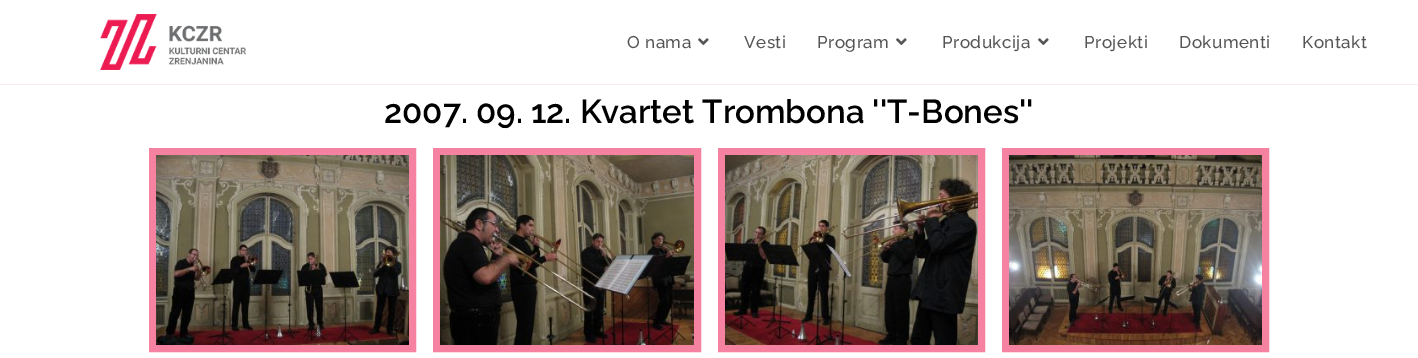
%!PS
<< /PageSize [1418 358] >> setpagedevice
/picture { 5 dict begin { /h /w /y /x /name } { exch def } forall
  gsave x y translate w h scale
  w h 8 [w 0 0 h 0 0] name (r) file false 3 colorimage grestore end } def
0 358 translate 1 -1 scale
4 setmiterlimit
1 setgray
0 0 1418 358 rectfill
0.992 0.918 0.937 setrgbcolor
0 84 1418 1 rectfill
(img1.rgb) 100 14 146 56 picture
/Raleway-Medium [17 0 0 -17 0 0] selectfont
0.333 setgray
627 48 moveto 0.5 0 (O nama) ashow
(img2.rgb) 698 38 11 7 picture
744 48 moveto 0.5 0 (Vesti) ashow
817 48 moveto 0.5 0 (Program) ashow
(img2.rgb) 896 38 11 7 picture
942 48 moveto 0.5 0 (Produkcija) ashow
(img2.rgb) 1038 38 11 7 picture
1084 48 moveto 0.5 0 (Projekti) ashow
1179 48 moveto 0.5 0 (Dokumenti) ashow
1302 48 moveto 0.5 0 (Kontakt) ashow
/Raleway-SemiBold [33 0 0 -33 0 0] selectfont
0 setgray
384 123 moveto (2007. 09. 12. Kvartet Trombona ''T-Bones'') show
0.961 0.51 0.627 setrgbcolor
7 setlinewidth
152.5 151.5 260 197 rectstroke
(img3.rgb) 156 155 253 190 picture
436.5 151.5 261 197 rectstroke
(img4.rgb) 440 155 254 190 picture
721.5 151.5 260 197 rectstroke
(img5.rgb) 725 155 253 190 picture
1005.5 151.5 260 197 rectstroke
(img6.rgb) 1009 155 253 190 picture
showpage
